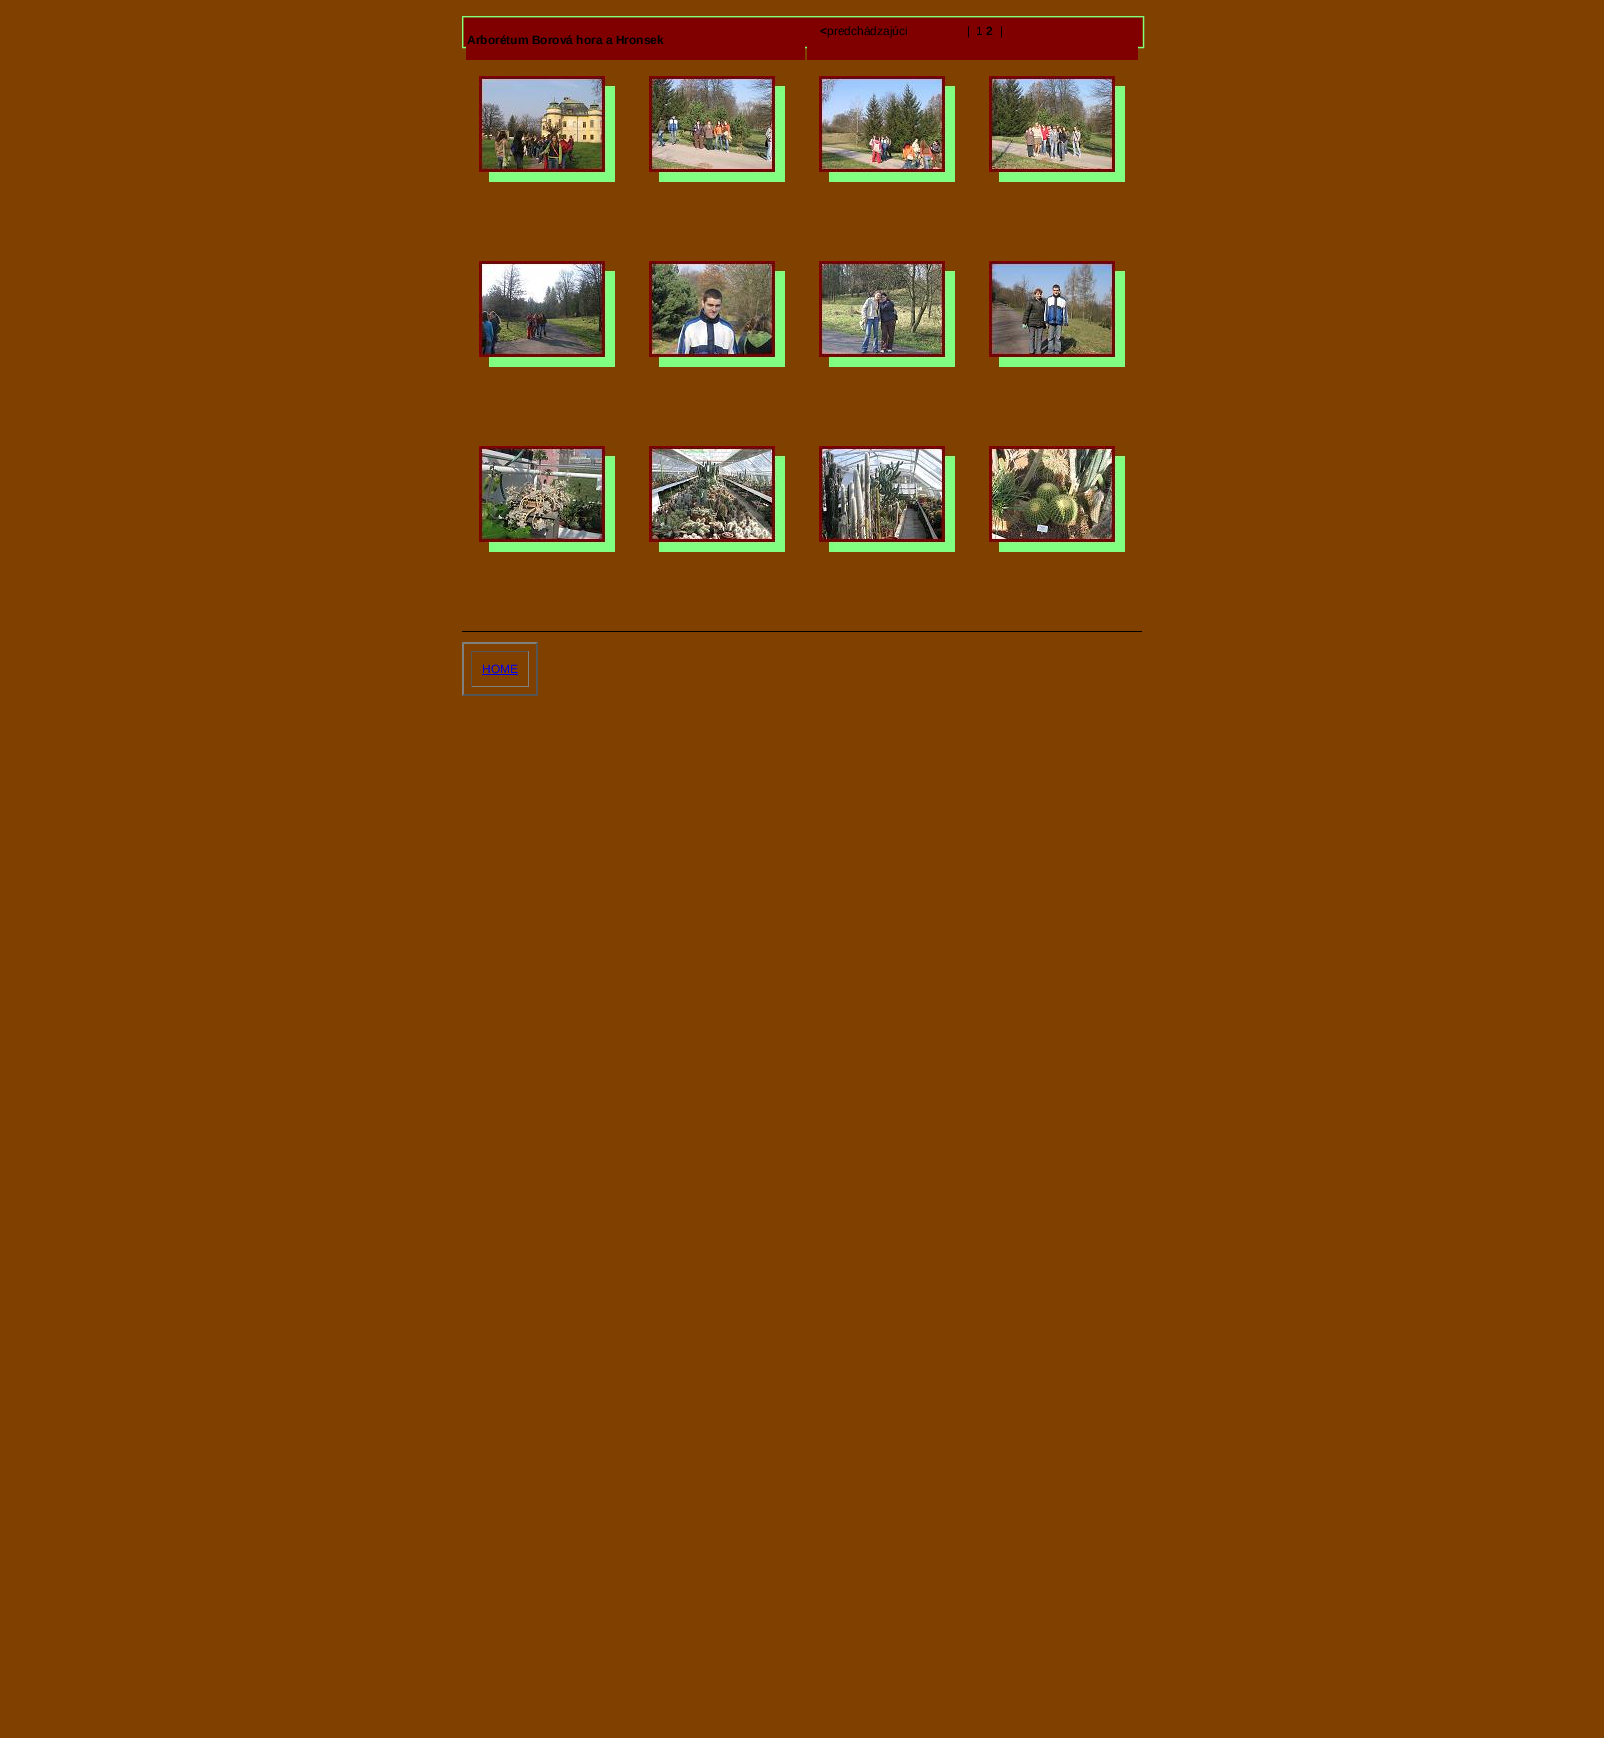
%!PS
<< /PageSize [1604 1738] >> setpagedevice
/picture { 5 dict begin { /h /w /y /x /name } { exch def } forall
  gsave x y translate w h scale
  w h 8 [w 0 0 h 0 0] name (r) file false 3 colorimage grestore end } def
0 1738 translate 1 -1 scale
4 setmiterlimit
0.502 0.251 0 setrgbcolor
0 0 1604 1738 rectfill
0.502 0 0 setrgbcolor
464 18 678 28 rectfill
0.502 1 0.502 setrgbcolor
462.5 16.5 681 31 rectstroke
0.502 0 0 setrgbcolor
807 46 331 14 rectfill
/LiberationSans-Bold [12 0 0 -12 0 0] selectfont
0 setgray
820 35 moveto (<) show
/LiberationSans-Regular [12 0 0 -12 0 0] selectfont
827 35 moveto (predchádzajúci) show
967 35 moveto (|) show
976 35 moveto (1) show
/LiberationSans-Bold [12 0 0 -12 0 0] selectfont
986 35 moveto (2) show
/LiberationSans-Regular [12 0 0 -12 0 0] selectfont
1000 35 moveto (|) show
0.502 0 0 setrgbcolor
466 46 339 14 rectfill
/LiberationSans-Bold [12 0 0 -12 0 0] selectfont
0 setgray
467 44 moveto (Arborétum Borová hora a Hronsek) show
(img1.rgb) 479 76 136 106 picture
(img2.rgb) 649 76 136 106 picture
(img3.rgb) 819 76 136 106 picture
(img4.rgb) 989 76 136 106 picture
(img5.rgb) 479 261 136 106 picture
(img6.rgb) 649 261 136 106 picture
(img7.rgb) 819 261 136 106 picture
(img8.rgb) 989 261 136 106 picture
(img9.rgb) 479 446 136 106 picture
(img10.rgb) 649 446 136 106 picture
(img11.rgb) 819 446 136 106 picture
(img12.rgb) 989 446 136 106 picture
462 631 680 1 rectfill
0.502 setgray
newpath 462 642 moveto 538 642 lineto 536 644 lineto 464 644 lineto closepath fill
0.333 setgray
newpath 538 642 moveto 538 696 lineto 536 694 lineto 536 644 lineto closepath fill
newpath 538 696 moveto 462 696 lineto 464 694 lineto 536 694 lineto closepath fill
0.502 setgray
newpath 462 696 moveto 462 642 lineto 464 644 lineto 464 694 lineto closepath fill
0.333 setgray
471 651 58 1 rectfill
0.502 setgray
528 651 1 36 rectfill
471 686 58 1 rectfill
0.333 setgray
471 651 1 36 rectfill
/LiberationSans-Regular [12 0 0 -12 0 0] selectfont
0 0 0.933 setrgbcolor
482 673 moveto (HOME) show
482 674 36 1 rectfill
showpage
